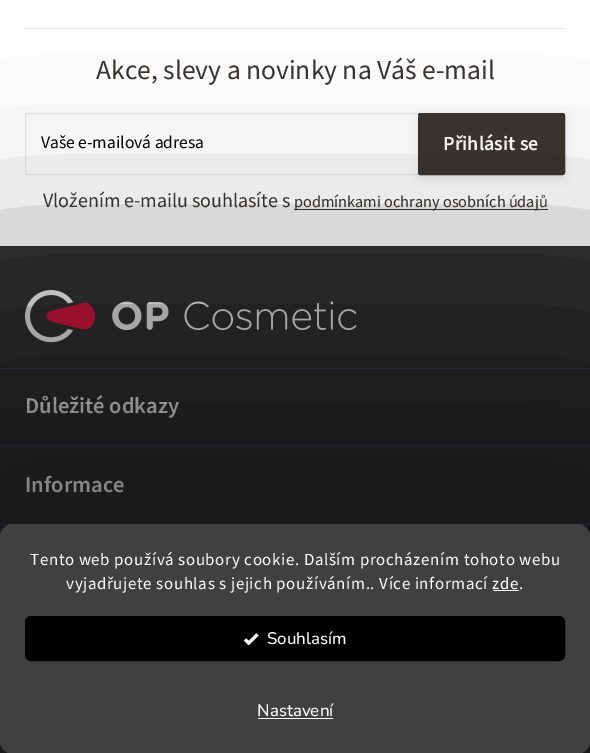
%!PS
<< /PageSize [590 753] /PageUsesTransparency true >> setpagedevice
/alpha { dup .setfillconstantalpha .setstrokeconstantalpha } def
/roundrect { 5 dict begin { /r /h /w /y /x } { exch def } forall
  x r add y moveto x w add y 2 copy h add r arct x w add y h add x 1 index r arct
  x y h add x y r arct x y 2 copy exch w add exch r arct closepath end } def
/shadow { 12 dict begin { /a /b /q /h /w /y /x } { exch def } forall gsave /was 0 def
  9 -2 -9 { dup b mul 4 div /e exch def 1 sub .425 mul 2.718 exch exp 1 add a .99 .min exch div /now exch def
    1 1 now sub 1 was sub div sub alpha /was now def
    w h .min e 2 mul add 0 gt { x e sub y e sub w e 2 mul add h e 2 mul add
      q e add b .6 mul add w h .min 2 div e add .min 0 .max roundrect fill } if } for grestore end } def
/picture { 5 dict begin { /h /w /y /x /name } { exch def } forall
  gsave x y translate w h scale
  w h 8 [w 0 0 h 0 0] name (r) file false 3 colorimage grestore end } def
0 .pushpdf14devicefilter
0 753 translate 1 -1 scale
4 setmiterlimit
1 setgray
0 0 590 753 rectfill
0.906 setgray
25 28 540 1 rectfill
/SourceSansPro-Regular [27.5 0 0 -27.5 0 0] selectfont
0.227 0.208 0.188 setrgbcolor
96 79 moveto (Akce, slevy a novinky na Váš e-mail) show
0.906 setgray
25.5 113.5 539 61 2 roundrect stroke
/SourceSansPro-Regular [17.5 0 0 -17.5 0 0] selectfont
0 setgray
41 148 moveto (Vaše e-mailová adresa) show
418 116 147 63 2.5 5 0.08 shadow
0.227 0.208 0.188 setrgbcolor
418.5 113.5 146 61 2 roundrect gsave fill grestore
stroke
/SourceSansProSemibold-SemiBold [20 0 0 -20 0 0] selectfont
1 setgray
443 150 moveto (Přihlásit se) show
/SourceSansPro-Regular [20 0 0 -20 0 0] selectfont
0.227 0.208 0.188 setrgbcolor
43 207 moveto (Vložením e-mailu souhlasíte s) show
294 209 254 1 rectfill
/SourceSansPro-Regular [16.25 0 0 -16.25 0 0] selectfont
294 207 moveto (podmínkami ochrany osobních údajů) show
0.208 0.204 0.208 setrgbcolor
0 246 590 507 rectfill
0.22 0.259 0.443 setrgbcolor
0 368 590 1 rectfill
(img1.rgb) 25 290 332 53 picture
0 445 590 1 rectfill
/SourceSansProSemibold-SemiBold [22.5 0 0 -22.5 0 0] selectfont
1 setgray
25 413 moveto (Důležité odkazy) show
0.22 0.259 0.443 setrgbcolor
0 524 590 1 rectfill
1 setgray
25 492 moveto (Informace) show
0 setgray
-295 279 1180 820 308 100 0.5 shadow
0.251 setgray
0 524 590 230 13 roundrect fill
/SourceSansPro-Regular [16.9 0 0 -16.9 0 0] selectfont
1 setgray
30 565 moveto 0.62 0 (Tento web používá soubory cookie. Dalším procházením tohoto webu) ashow
66 589 moveto 0.62 0 (vyjadřujete souhlas s jejich používáním.. Více informací zde.) ashow
493 590 26 1 rectfill
0 setgray
25.5 616.5 539 44 5.5 roundrect gsave fill grestore
stroke
(img2.rgb) 244 633 15 12 picture
/Nunito-Medium [16.9 0 0 -16.9 0 0] selectfont
1 setgray
267 644 moveto (Souhlasím) show
257 716 moveto (Nastavení) show
258 718 75 1 rectfill
.poppdf14devicefilter showpage
